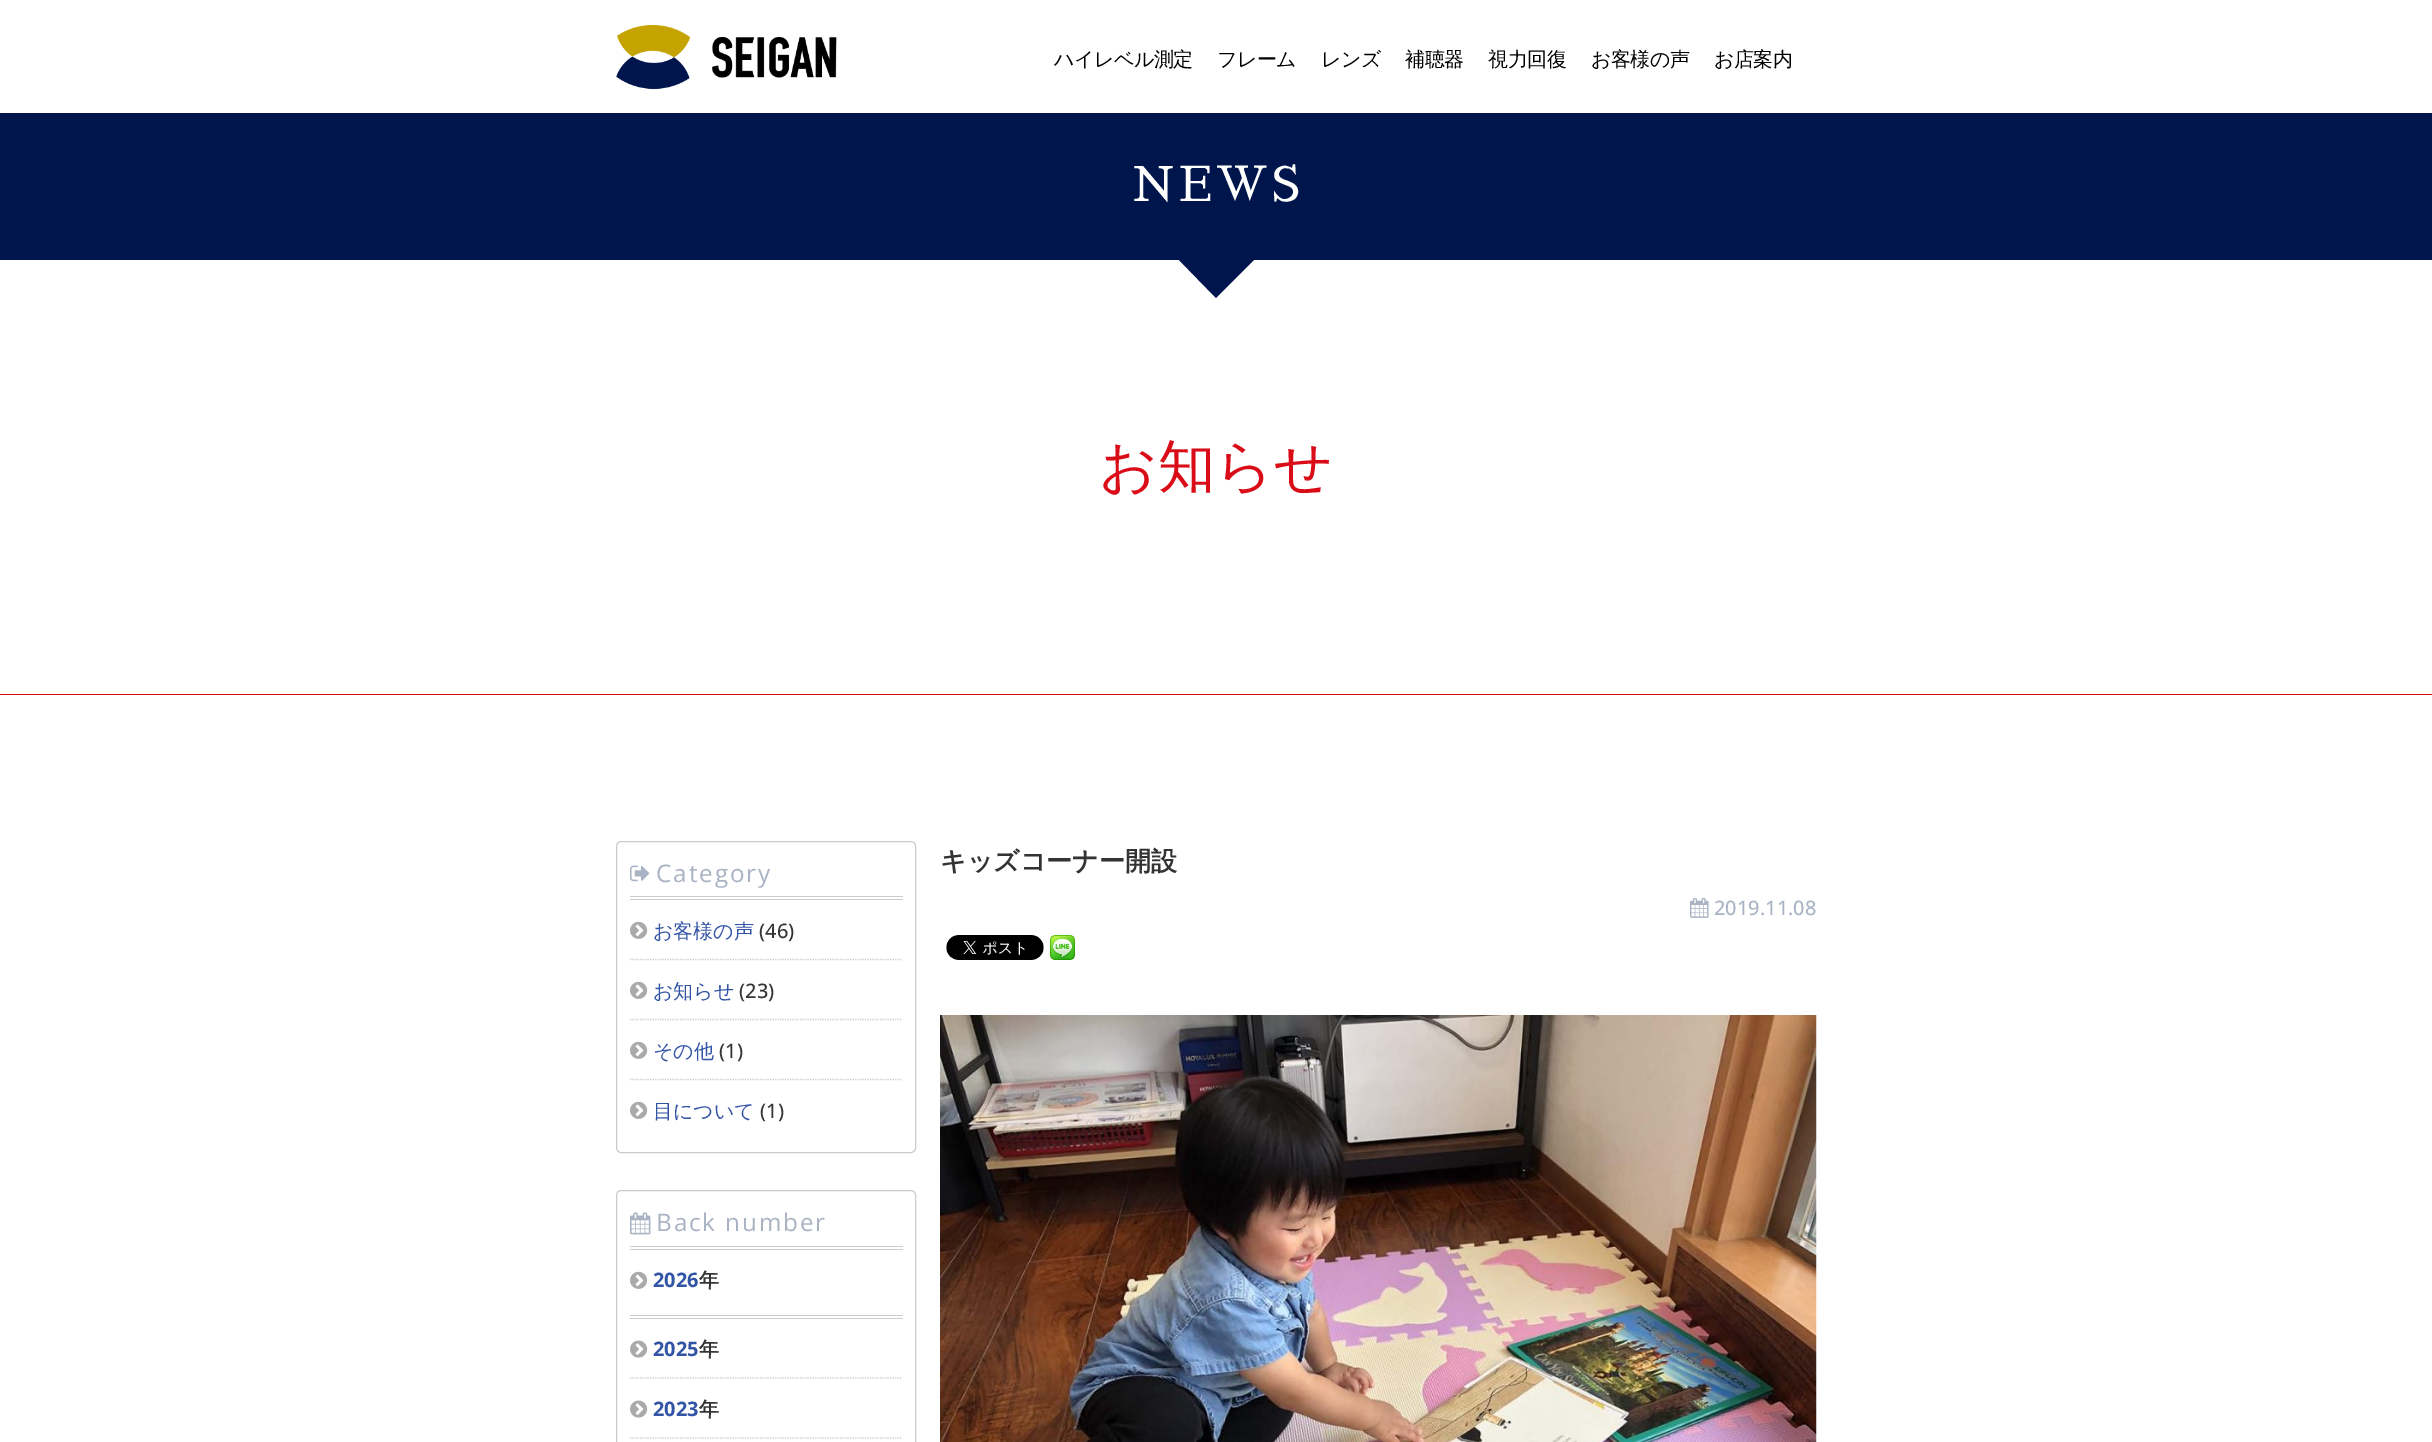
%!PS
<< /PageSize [2432 1442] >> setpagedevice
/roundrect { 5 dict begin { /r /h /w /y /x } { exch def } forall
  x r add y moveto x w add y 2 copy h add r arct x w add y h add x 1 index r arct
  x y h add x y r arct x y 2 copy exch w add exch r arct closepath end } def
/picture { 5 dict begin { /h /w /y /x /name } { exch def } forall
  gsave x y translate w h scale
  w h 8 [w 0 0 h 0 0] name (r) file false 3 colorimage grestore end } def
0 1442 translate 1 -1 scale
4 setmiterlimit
1 setgray
0 0 2432 1442 rectfill
(img1.rgb) 616 25 221 65 picture
/WenQuanYiZenHei-Medium [20 0 0 -20 0 0] selectfont
0 setgray
1054 66 moveto -0.5 0 (ハイレベル測定) ashow
1217 66 moveto -0.5 0 (フレーム) ashow
1321 66 moveto -0.5 0 (レンズ) ashow
1405 66 moveto -0.5 0 (補聴器) ashow
1488 66 moveto -0.5 0 (視力回復) ashow
1591 66 moveto -0.5 0 (お客様の声) ashow
1714 66 moveto -0.5 0 (お店案内) ashow
0 0.082 0.294 setrgbcolor
0 113 2432 147 rectfill
/SawarabiMincho-Regular [48 0 0 -48 0 0] selectfont
1 setgray
1131 201 moveto 2.5 0 (NEWS) ashow
0 0.082 0.294 setrgbcolor
newpath 1179 260 moveto 1254 260 lineto 1216 298 lineto closepath fill
0.851 0.047 0.094 setrgbcolor
0 694 2432 1 rectfill
/WenQuanYiZenHei-Medium [57.5 0 0 -57.5 0 0] selectfont
1099 486 moveto (お知らせ) show
0.8 setgray
616.5 841.5 299 311 4.5 roundrect stroke
(img2.rgb) 630 865 20 17 picture
/OpenSans-Regular [24.25 0 0 -24.25 0 0] selectfont
0.667 0.702 0.765 setrgbcolor
656 882 moveto 1.9 0 (Category) ashow
0.8 setgray
630 896 273 1 rectfill
630 899 273 1 rectfill
(img3.rgb) 630 921 18 18 picture
/WenQuanYiZenHei-Medium [20 0 0 -20 0 0] selectfont
0.196 0.329 0.643 setrgbcolor
653 938 moveto (お客様の声) show
/OpenSans-Medium [20 0 0 -20 0 0] selectfont
0.2 setgray
759 938 moveto (\(46\)) show
0.8 setgray
1.2 setlinewidth
[1.25 1.25] 0 setdash
newpath 630 959.5 moveto 902.5 959.5 lineto stroke
(img3.rgb) 630 981 18 18 picture
/WenQuanYiZenHei-Medium [20 0 0 -20 0 0] selectfont
0.196 0.329 0.643 setrgbcolor
653 998 moveto (お知らせ) show
/OpenSans-Medium [20 0 0 -20 0 0] selectfont
0.2 setgray
739 998 moveto (\(23\)) show
0.8 setgray
newpath 630 1019.5 moveto 902.5 1019.5 lineto stroke
(img3.rgb) 630 1041 18 18 picture
/WenQuanYiZenHei-Medium [20 0 0 -20 0 0] selectfont
0.196 0.329 0.643 setrgbcolor
653 1058 moveto (その他) show
/OpenSans-Medium [20 0 0 -20 0 0] selectfont
0.2 setgray
719 1058 moveto (\(1\)) show
0.8 setgray
newpath 630 1079.5 moveto 902.5 1079.5 lineto stroke
(img3.rgb) 630 1101 18 18 picture
/WenQuanYiZenHei-Medium [20 0 0 -20 0 0] selectfont
0.196 0.329 0.643 setrgbcolor
653 1118 moveto (目について) show
/OpenSans-Medium [20 0 0 -20 0 0] selectfont
0.2 setgray
760 1118 moveto (\(1\)) show
0.8 setgray
1 setlinewidth
[] 0 setdash
616.5 1190.5 299 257 4.5 roundrect stroke
(img4.rgb) 630 1212 21 23 picture
/OpenSans-Regular [24.25 0 0 -24.25 0 0] selectfont
0.667 0.702 0.765 setrgbcolor
656 1231 moveto 1.9 0 (Back number) ashow
0.8 setgray
630 1246 273 1 rectfill
630 1249 273 1 rectfill
(img3.rgb) 630 1271 18 18 picture
/OpenSans-Bold [20 0 0 -20 0 0] selectfont
0.196 0.329 0.643 setrgbcolor
653 1287 moveto (2026) show
/WenQuanYiZenHei-Bold [20 0 0 -20 0 0] selectfont
0.2 setgray
699 1287 moveto (年) show
0.8 setgray
630 1315 273 1 rectfill
630 1318 273 1 rectfill
(img5.rgb) 630 1340 18 18 picture
/OpenSans-Bold [20 0 0 -20 0 0] selectfont
0.196 0.329 0.643 setrgbcolor
653 1356 moveto (2025) show
/WenQuanYiZenHei-Bold [20 0 0 -20 0 0] selectfont
0.2 setgray
699 1356 moveto (年) show
0.8 setgray
1.2 setlinewidth
[1.25 1.25] 0 setdash
newpath 630 1378 moveto 902.5 1378 lineto stroke
(img5.rgb) 630 1400 18 18 picture
/OpenSans-Bold [20 0 0 -20 0 0] selectfont
0.196 0.329 0.643 setrgbcolor
653 1416 moveto (2023) show
/WenQuanYiZenHei-Bold [20 0 0 -20 0 0] selectfont
0.2 setgray
699 1416 moveto (年) show
0.8 setgray
newpath 630 1438 moveto 902.5 1438 lineto stroke
/WenQuanYiZenHei-Bold [26 0 0 -26 0 0] selectfont
0.2 setgray
940 870 moveto (キッズコーナー開設) show
(img6.rgb) 1690 897 19 21 picture
/OpenSans-Medium [20 0 0 -20 0 0] selectfont
0.667 0.702 0.765 setrgbcolor
1714 915 moveto (2019.11.08) show
(img7.rgb) 946 935 98 25 picture
(img8.rgb) 1050 935 25 25 picture
(img9.rgb) 940 1015 877 427 picture
showpage
